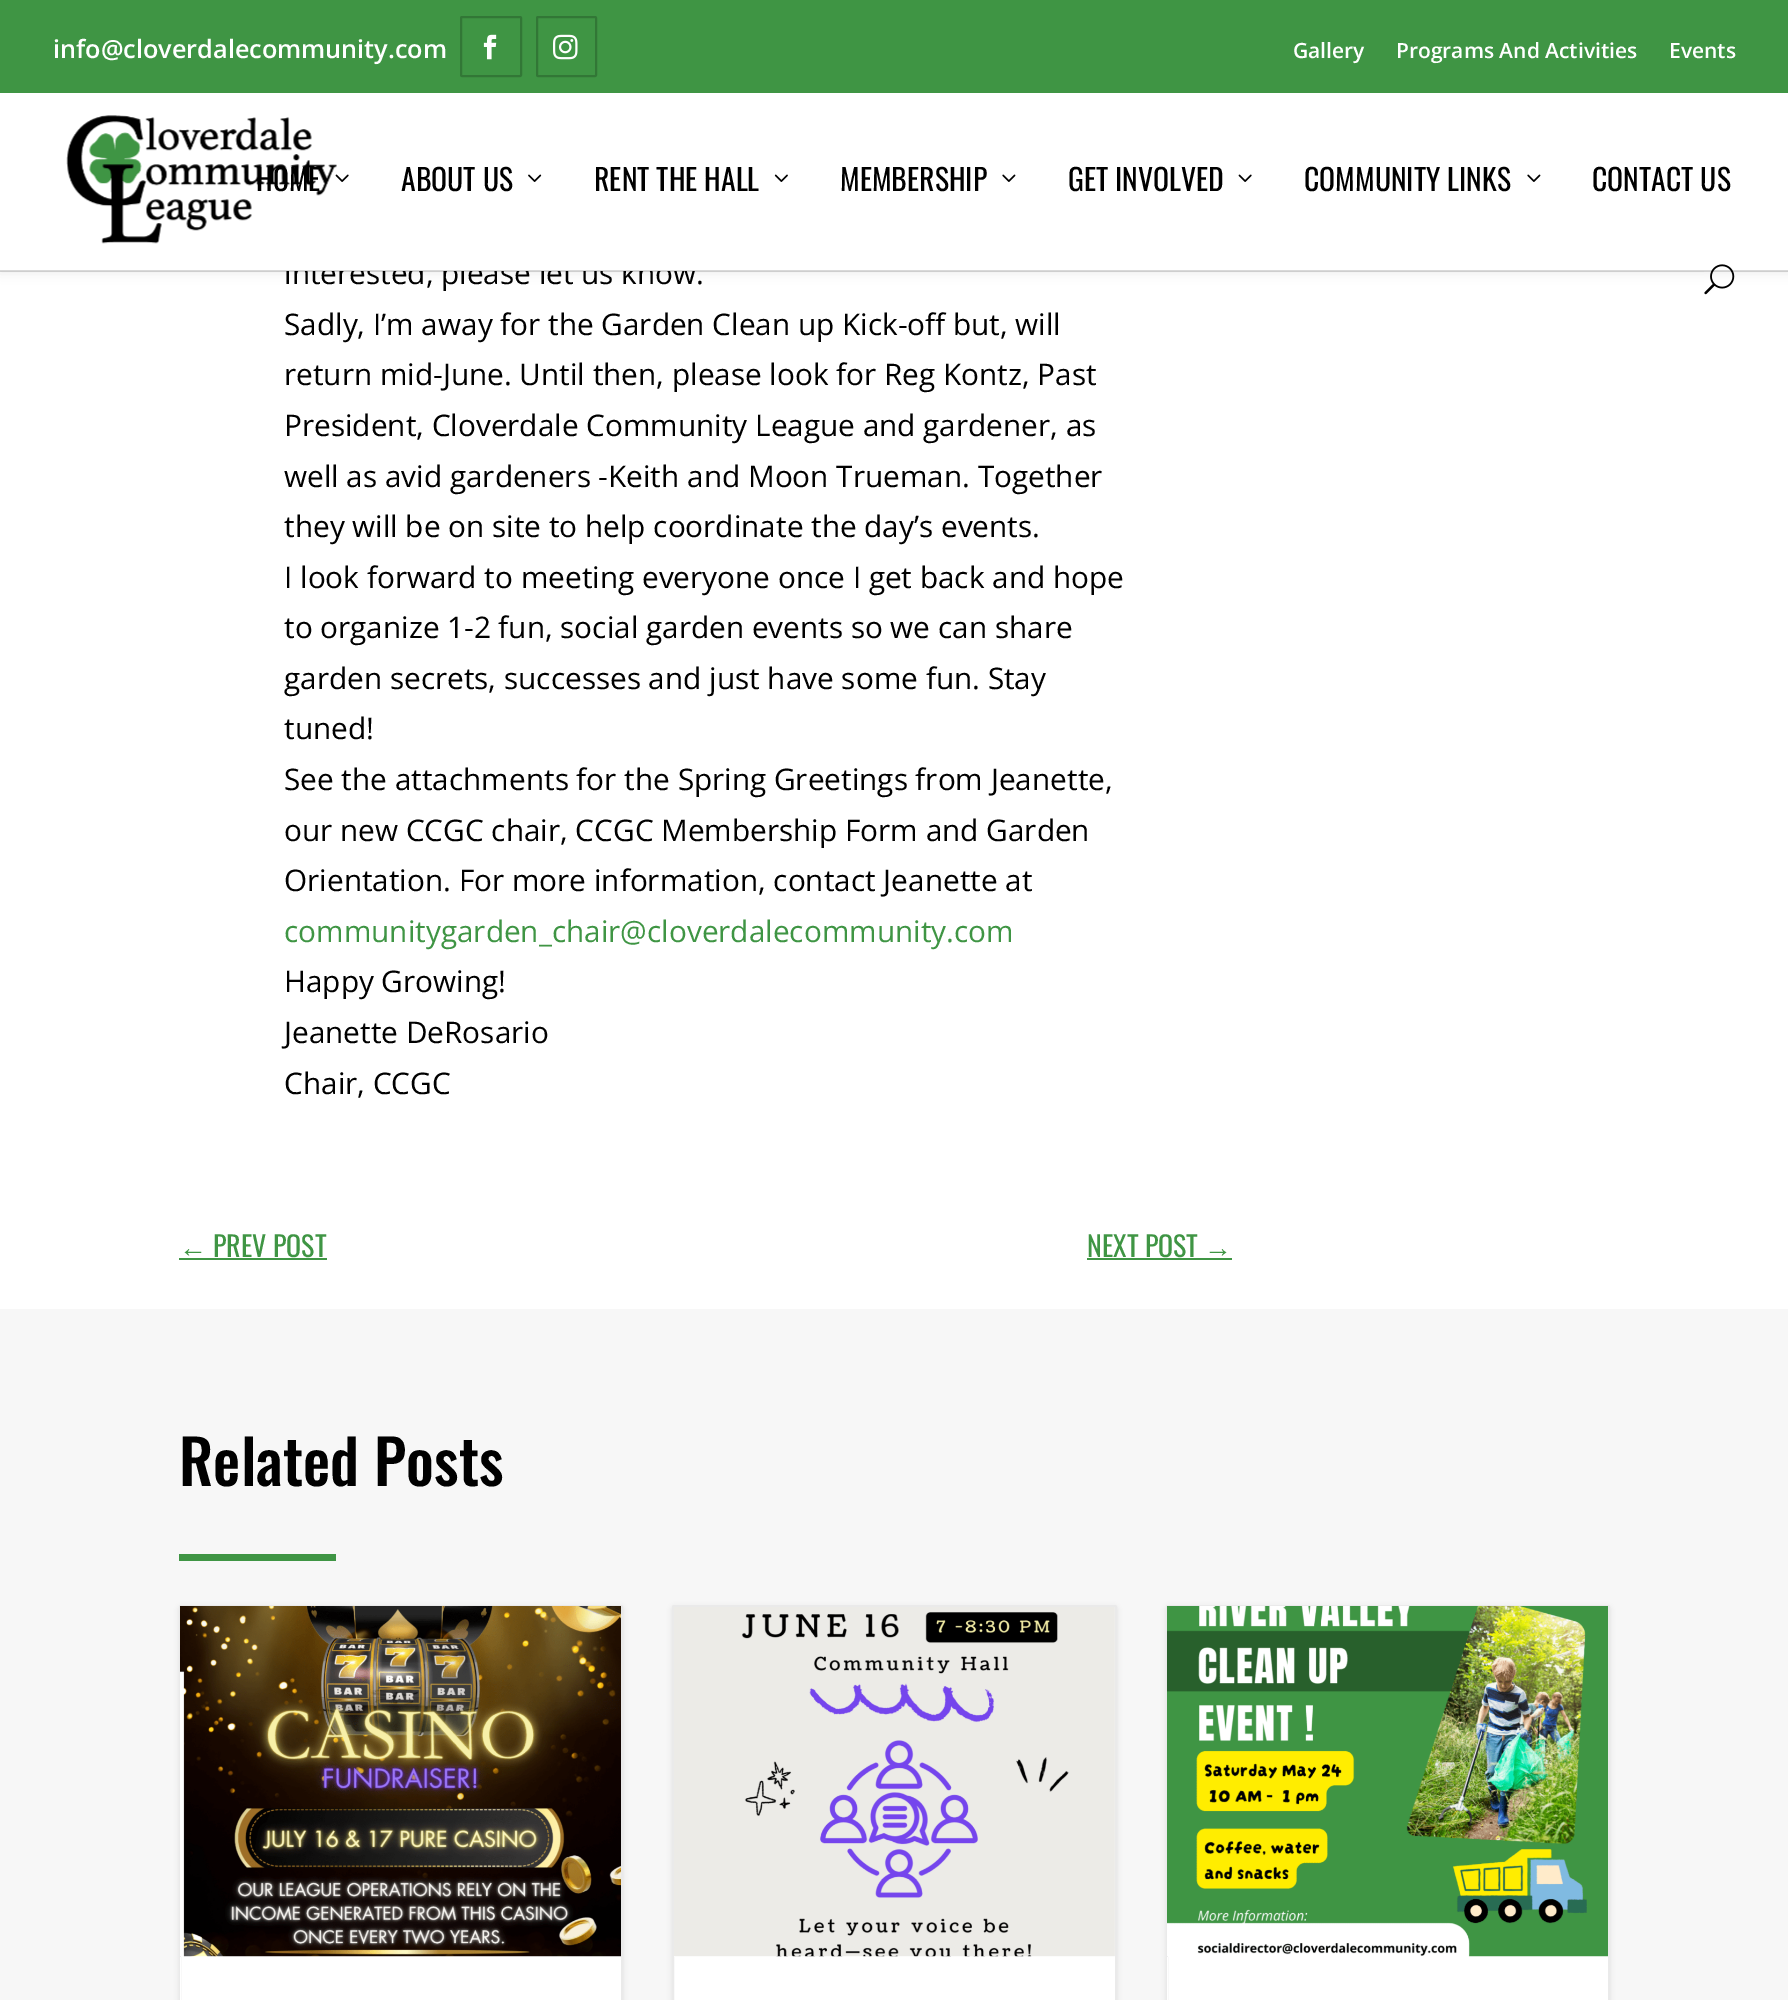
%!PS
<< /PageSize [1788 2000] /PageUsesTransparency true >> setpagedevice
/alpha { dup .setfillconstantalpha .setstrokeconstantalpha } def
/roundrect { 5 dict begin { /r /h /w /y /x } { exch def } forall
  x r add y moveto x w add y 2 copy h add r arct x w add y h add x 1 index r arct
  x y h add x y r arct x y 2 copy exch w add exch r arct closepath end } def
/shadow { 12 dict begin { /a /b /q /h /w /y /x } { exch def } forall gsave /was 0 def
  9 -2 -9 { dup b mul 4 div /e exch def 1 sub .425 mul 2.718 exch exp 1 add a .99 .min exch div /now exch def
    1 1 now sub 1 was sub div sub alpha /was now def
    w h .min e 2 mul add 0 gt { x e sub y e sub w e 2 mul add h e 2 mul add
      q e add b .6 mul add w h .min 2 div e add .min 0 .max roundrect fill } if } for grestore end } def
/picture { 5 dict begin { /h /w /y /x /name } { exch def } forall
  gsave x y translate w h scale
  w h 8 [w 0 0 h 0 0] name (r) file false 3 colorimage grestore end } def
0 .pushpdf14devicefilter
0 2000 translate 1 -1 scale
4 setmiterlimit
1 setgray
0 0 1788 2000 rectfill
0 setgray
0 93 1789 178 0 6 0.1 shadow
0.247 0.584 0.267 setrgbcolor
0 0 1788 93 rectfill
/OpenSans-SemiBold [25.25 0 0 -25.25 0 0] selectfont
1 setgray
53 58 moveto (info@cloverdalecommunity.com) show
0.196 0.467 0.212 setrgbcolor
2 setlinewidth
461 17 60 59 1 roundrect stroke
(img1.rgb) 483 34 14 26 picture
537 17 59 59 1 roundrect stroke
(img2.rgb) 553 34 25 26 picture
/OpenSans-SemiBold [21 0 0 -21 0 0] selectfont
1 setgray
1293 58 moveto (Gallery) show
1396 58 moveto (Programs And Activities) show
1669 58 moveto (Events) show
/OpenSans-Regular [29.75 0 0 -29.75 0 0] selectfont
0 setgray
284 284 moveto (interested, please let us know.) show
1 setgray
0 93 1788 178 rectfill
0.15 alpha
0 setgray
0 270 1788 2 rectfill
1 alpha
(img3.rgb) 66 115 271 129 picture
/Oswald-Regular [29.75 0 0 -29.75 0 0] selectfont
256 191 moveto (HOME) show
(img4.rgb) 335 174 14 8 picture
401 191 moveto (ABOUT US) show
(img5.rgb) 528 174 14 8 picture
594 191 moveto (RENT THE HALL) show
(img6.rgb) 774 174 14 8 picture
840 191 moveto (MEMBERSHIP) show
(img7.rgb) 1002 174 14 8 picture
1068 191 moveto (GET INVOLVED) show
(img4.rgb) 1238 174 14 8 picture
1304 191 moveto (COMMUNITY LINKS) show
(img7.rgb) 1527 174 14 8 picture
1592 191 moveto (CONTACT US) show
(img8.rgb) 1704 264 31 31 picture
/OpenSans-Regular [29.75 0 0 -29.75 0 0] selectfont
284 335 moveto (Sadly, I’m away for the Garden Clean up Kick-off but, will) show
284 385 moveto (return mid-June. Until then, please look for Reg Kontz, Past) show
284 436 moveto (President, Cloverdale Community League and gardener, as) show
284 487 moveto (well as avid gardeners -Keith and Moon Trueman. Together) show
284 537 moveto (they will be on site to help coordinate the day’s events.) show
284 588 moveto (I look forward to meeting everyone once I get back and hope) show
284 638 moveto (to organize 1-2 fun, social garden events so we can share) show
284 689 moveto (garden secrets, successes and just have some fun. Stay) show
284 739 moveto (tuned!) show
284 790 moveto (See the attachments for the Spring Greetings from Jeanette,) show
284 841 moveto (our new CCGC chair, CCGC Membership Form and Garden) show
284 891 moveto (Orientation. For more information, contact Jeanette at) show
0.247 0.584 0.267 setrgbcolor
284 942 moveto (communitygarden_chair@cloverdalecommunity.com) show
0 setgray
284 992 moveto (Happy Growing!) show
284 1043 moveto (Jeanette DeRosario) show
284 1094 moveto (Chair, CCGC) show
/LiberationSans-Regular [28 0 0 -28 0 0] selectfont
0.247 0.584 0.267 setrgbcolor
179 1257 moveto (←) show
179 1258 148 2 rectfill
/Oswald-Regular [28 0 0 -28 0 0] selectfont
213 1257 moveto (PREV POST) show
1087 1257 moveto (NEXT POST) show
1087 1258 145 2 rectfill
/LiberationSans-Regular [28 0 0 -28 0 0] selectfont
1204 1257 moveto (→) show
0.969 setgray
0 1309 1788 691 rectfill
/Oswald-Medium [61.25 0 0 -61.25 0 0] selectfont
0 setgray
179 1486 moveto (Related Posts) show
0.247 0.584 0.267 setrgbcolor
179 1554 157 7 rectfill
0 setgray
179 1607 444 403 2 2.5 0.08 shadow
1 setgray
180 1606 442 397 1 roundrect gsave fill grestore
0.918 setgray
stroke
(img9.rgb) 180 1606 441 351 picture
1 setgray
180 1957 1 43 rectfill
0 setgray
672 1607 445 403 2 2.5 0.08 shadow
1 setgray
673 1606 443 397 1 roundrect gsave fill grestore
0.918 setgray
stroke
(img10.rgb) 674 1607 441 350 picture
0 setgray
1166 1607 444 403 2 2.5 0.08 shadow
1 setgray
1167 1606 442 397 1 roundrect gsave fill grestore
0.918 setgray
stroke
(img11.rgb) 1167 1606 441 351 picture
1 setgray
1167 1957 1 43 rectfill
.poppdf14devicefilter showpage
